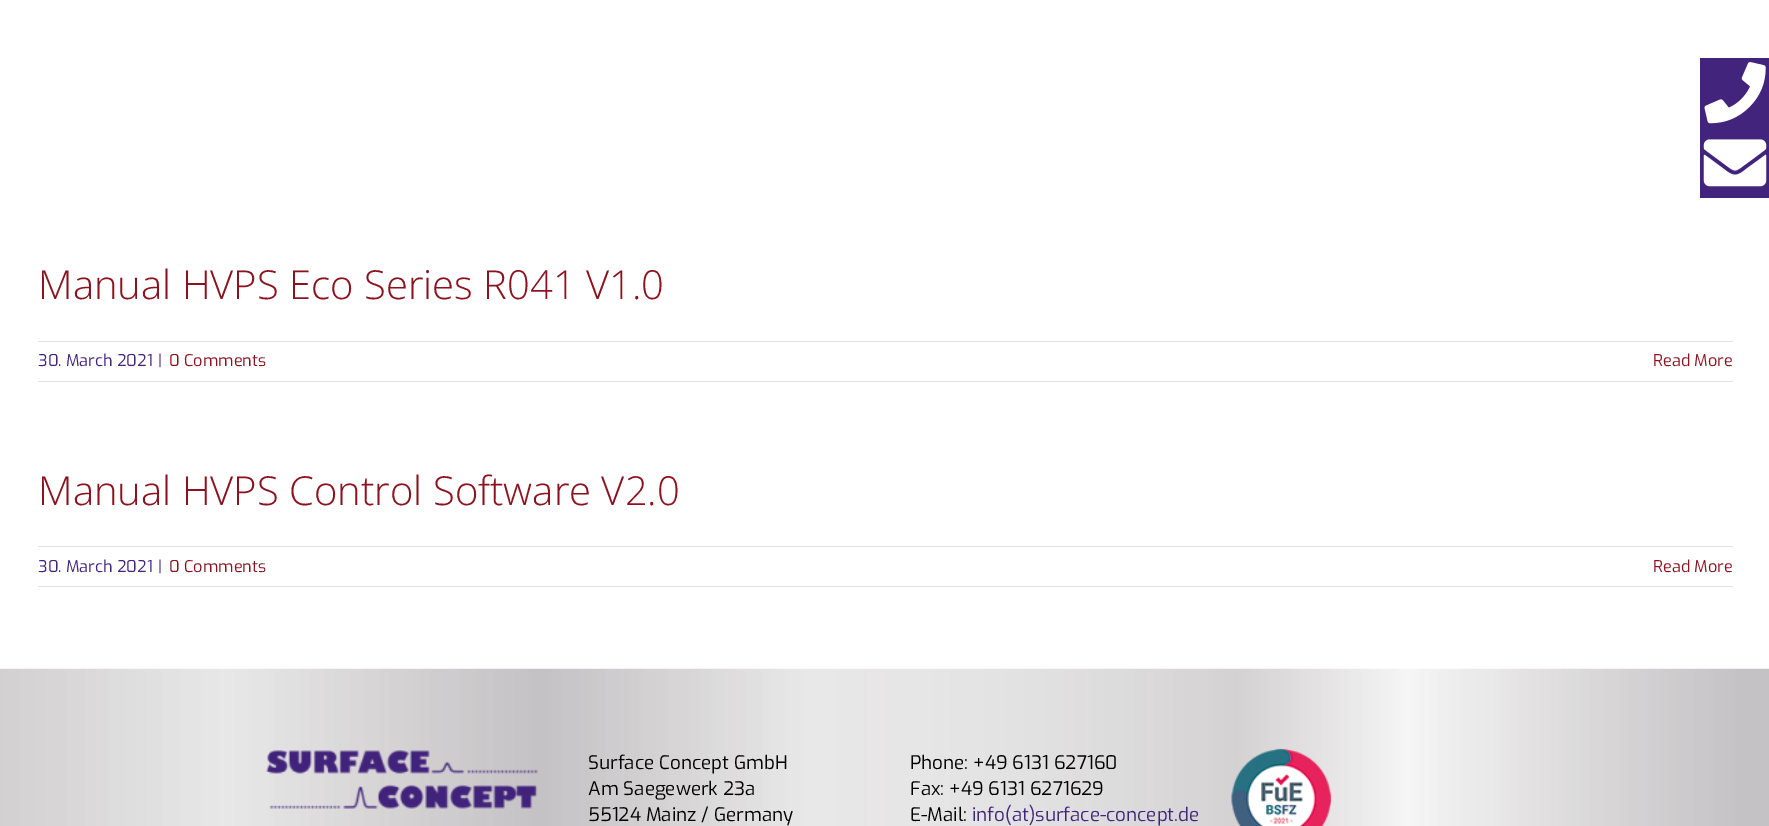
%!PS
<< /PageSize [1769 826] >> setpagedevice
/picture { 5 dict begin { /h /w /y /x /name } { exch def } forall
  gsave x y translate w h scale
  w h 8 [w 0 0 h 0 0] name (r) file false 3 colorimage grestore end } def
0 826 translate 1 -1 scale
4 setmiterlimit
1 setgray
0 0 1769 826 rectfill
0.259 0.141 0.49 setrgbcolor
1700 58 69 140 rectfill
(img1.rgb) 1704 62 62 62 picture
(img2.rgb) 1703 139 64 48 picture
/OpenSans-Light [40 0 0 -40 0 0] selectfont
0.545 0.075 0.122 setrgbcolor
38 299 moveto (Manual HVPS Eco Series R041 V1.0) show
0.886 setgray
38 341 1695 1 rectfill
38 381 1695 1 rectfill
/Exo-Regular [16.25 0 0 -16.25 0 0] selectfont
0.259 0.141 0.49 setrgbcolor
38 366 moveto (30. March 2021) show
158 366 moveto (|) show
0.545 0.075 0.122 setrgbcolor
169 366 moveto (0 Comments) show
1653 366 moveto (Read More) show
/OpenSans-Light [40 0 0 -40 0 0] selectfont
38 505 moveto (Manual HVPS Control Software V2.0) show
0.886 setgray
38 546 1695 1 rectfill
38 586 1695 1 rectfill
/Exo-Regular [16.25 0 0 -16.25 0 0] selectfont
0.259 0.141 0.49 setrgbcolor
38 572 moveto (30. March 2021) show
158 572 moveto (|) show
0.545 0.075 0.122 setrgbcolor
169 572 moveto (0 Comments) show
1653 572 moveto (Read More) show
(img3.rgb) 0 668 1769 158 picture
(img4.rgb) 266 750 272 59 picture
/Exo-Regular [18.75 0 0 -18.75 0 0] selectfont
0 setgray
588 769 moveto (Surface Concept GmbH) show
588 795 moveto (Am Saegewerk 23a) show
588 821 moveto (55124 Mainz / Germany) show
910 769 moveto (Phone: +49 6131 627160) show
910 795 moveto (Fax: +49 6131 6271629) show
910 821 moveto (E-Mail:) show
0.259 0.141 0.49 setrgbcolor
972 821 moveto (info\(at\)surface-concept.de) show
(img5.rgb) 1231 748 101 78 picture
showpage
